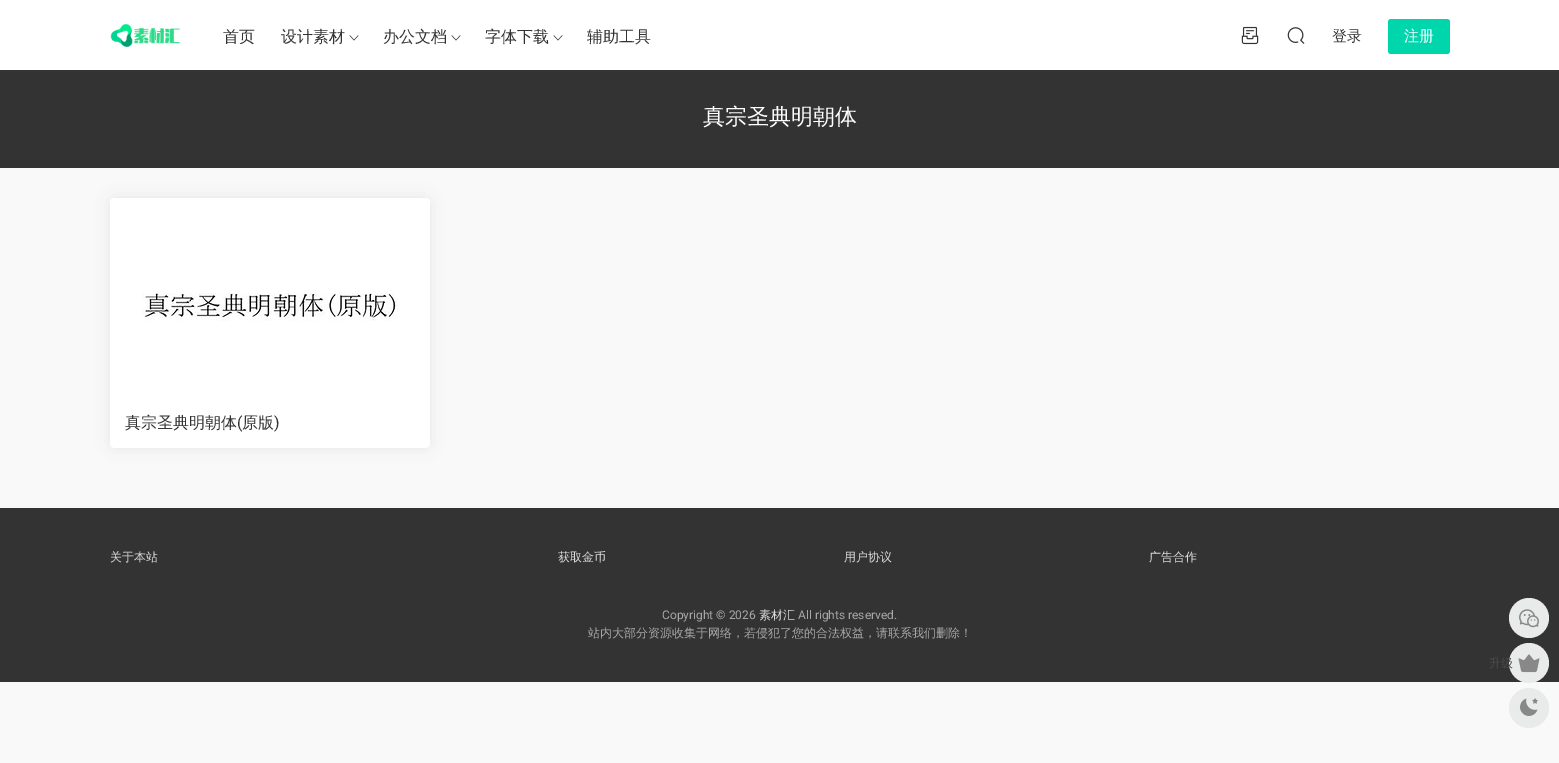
%!PS
<< /PageSize [1559 763] /PageUsesTransparency true >> setpagedevice
/alpha { dup .setfillconstantalpha .setstrokeconstantalpha } def
/roundrect { 5 dict begin { /r /h /w /y /x } { exch def } forall
  x r add y moveto x w add y 2 copy h add r arct x w add y h add x 1 index r arct
  x y h add x y r arct x y 2 copy exch w add exch r arct closepath end } def
/shadow { 12 dict begin { /a /b /q /h /w /y /x } { exch def } forall gsave /was 0 def
  9 -2 -9 { dup b mul 4 div /e exch def 1 sub .425 mul 2.718 exch exp 1 add a .99 .min exch div /now exch def
    1 1 now sub 1 was sub div sub alpha /was now def
    w h .min e 2 mul add 0 gt { x e sub y e sub w e 2 mul add h e 2 mul add
      q e add b .6 mul add w h .min 2 div e add .min 0 .max roundrect fill } if } for grestore end } def
/picture { 5 dict begin { /h /w /y /x /name } { exch def } forall
  gsave x y translate w h scale
  w h 8 [w 0 0 h 0 0] name (r) file false 3 colorimage grestore end } def
0 .pushpdf14devicefilter
0 763 translate 1 -1 scale
4 setmiterlimit
0.976 setgray
0 0 1559 763 rectfill
0.2 setgray
0 70 1559 98 rectfill
0.306 0.322 0.329 setrgbcolor
0 2 1559 70 0 5 0.1 shadow
1 setgray
0 0 1559 70 rectfill
(img1.rgb) 110 23 70 24 picture
/WenQuanYiZenHei-Medium [16 0 0 -16 0 0] selectfont
0.2 setgray
223 42 moveto (首页) show
281 42 moveto (设计素材) show
(img2.rgb) 349 35 10 6 picture
383 42 moveto (办公文档) show
(img2.rgb) 451 35 10 6 picture
485 42 moveto (字体下载) show
(img2.rgb) 553 35 10 6 picture
587 42 moveto (辅助工具) show
(img3.rgb) 1241 26 18 19 picture
(img4.rgb) 1287 27 18 17 picture
/WenQuanYiZenHei-Medium [15 0 0 -15 0 0] selectfont
1332 41 moveto (登录) show
0 0.839 0.675 setrgbcolor
1388 19 62 35 3 roundrect fill
1 setgray
1404 41 moveto (注册) show
/WenQuanYiZenHei-Medium [22 0 0 -22 0 0] selectfont
703 124 moveto (真宗圣典明朝体) show
0 setgray
110 198 320 250 5 7.5 0.07 shadow
1 setgray
110 198 320 250 5 roundrect fill
newpath 115 198 moveto 425 198 lineto 428 198 430 200 430 203 curveto 430 398 lineto 110 398 lineto 110 203 lineto 110 200 112 198 115 198 curveto closepath fill
(img5.rgb) 142 293 256 28 picture
/WenQuanYiZenHei-Medium [16 0 0 -16 0 0] selectfont
0.2 setgray
125 428 moveto (真宗圣典明朝体) show
/Roboto-Regular [16 0 0 -16 0 0] selectfont
237 428 moveto (\() show
/WenQuanYiZenHei-Medium [16 0 0 -16 0 0] selectfont
242 428 moveto (原版) show
/Roboto-Regular [16 0 0 -16 0 0] selectfont
274 428 moveto (\)) show
0 508 1559 174 rectfill
/WenQuanYiZenHei-Medium [12 0 0 -12 0 0] selectfont
0.863 setgray
110 561 moveto (关于本站) show
558 561 moveto (获取金币) show
844 561 moveto (用户协议) show
1149 561 moveto (广告合作) show
/Roboto-Regular [12 0 0 -12 0 0] selectfont
0.655 setgray
662 619 moveto (Copyright © 2026) show
/WenQuanYiZenHei-Medium [12 0 0 -12 0 0] selectfont
0.863 setgray
759 619 moveto (素材汇) show
/Roboto-Regular [12 0 0 -12 0 0] selectfont
0.655 setgray
798 619 moveto (All rights reserved.) show
/WenQuanYiZenHei-Medium [12 0 0 -12 0 0] selectfont
588 637 moveto (站内大部分资源收集于网络，若侵犯了您的合法权益，请联系我们删除！) show
0.914 0.918 0.918 setrgbcolor
newpath 1529 618 20 0 360 arc closepath fill
(img6.rgb) 1519 609 20 19 picture
newpath 1529 663 20 0 360 arc closepath fill
0.29 setgray
1489 667 moveto (升级) show
(img7.rgb) 1518 654 22 19 picture
0.914 0.918 0.918 setrgbcolor
newpath 1529 708 20 0 360 arc closepath fill
(img8.rgb) 1520 698 18 18 picture
.poppdf14devicefilter showpage
